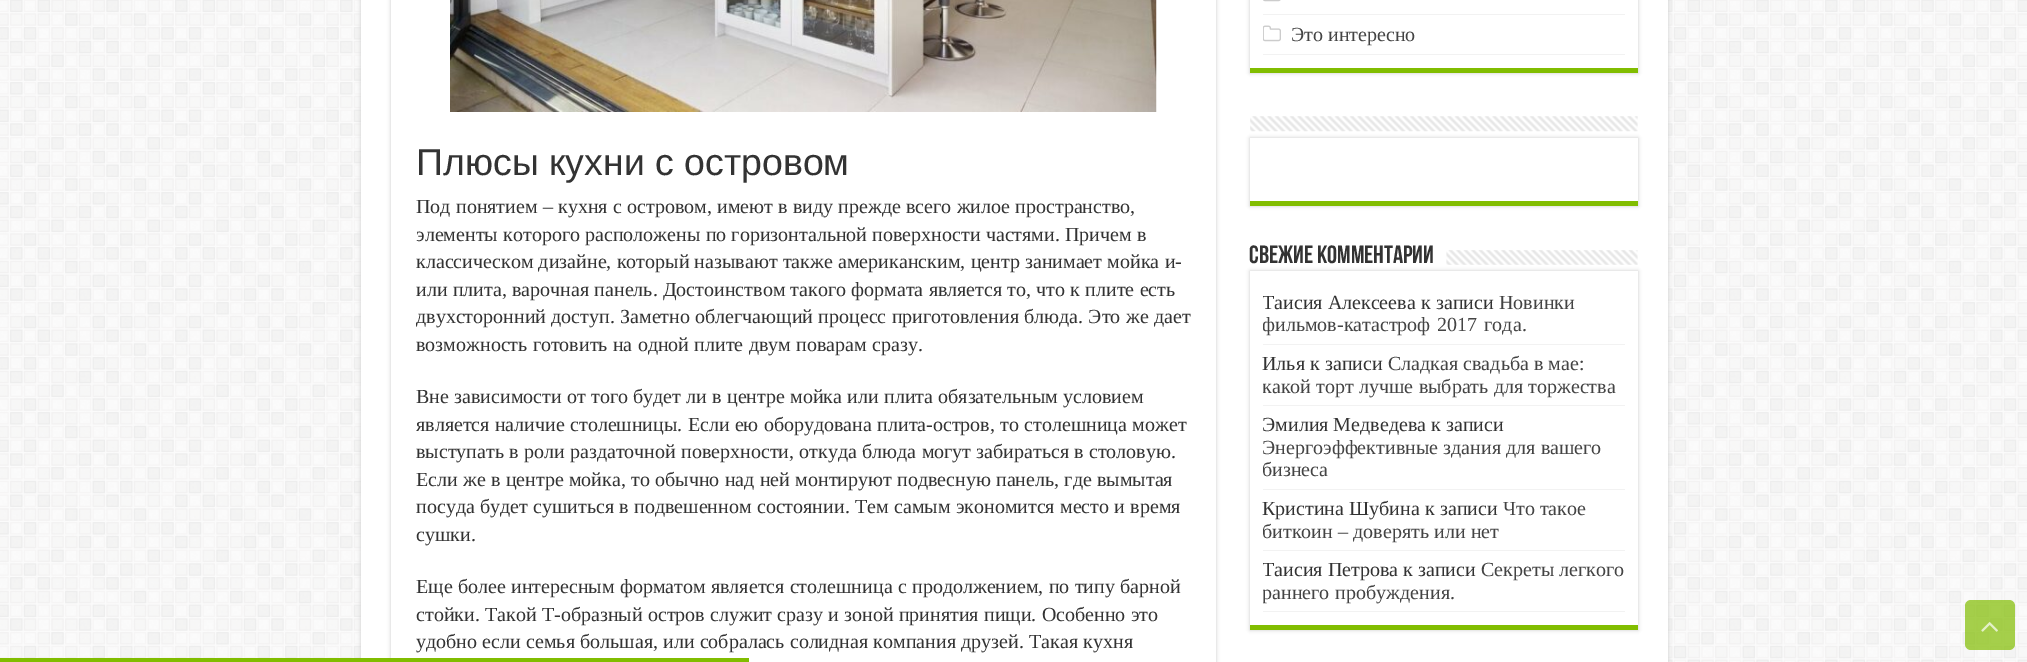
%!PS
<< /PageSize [2027 662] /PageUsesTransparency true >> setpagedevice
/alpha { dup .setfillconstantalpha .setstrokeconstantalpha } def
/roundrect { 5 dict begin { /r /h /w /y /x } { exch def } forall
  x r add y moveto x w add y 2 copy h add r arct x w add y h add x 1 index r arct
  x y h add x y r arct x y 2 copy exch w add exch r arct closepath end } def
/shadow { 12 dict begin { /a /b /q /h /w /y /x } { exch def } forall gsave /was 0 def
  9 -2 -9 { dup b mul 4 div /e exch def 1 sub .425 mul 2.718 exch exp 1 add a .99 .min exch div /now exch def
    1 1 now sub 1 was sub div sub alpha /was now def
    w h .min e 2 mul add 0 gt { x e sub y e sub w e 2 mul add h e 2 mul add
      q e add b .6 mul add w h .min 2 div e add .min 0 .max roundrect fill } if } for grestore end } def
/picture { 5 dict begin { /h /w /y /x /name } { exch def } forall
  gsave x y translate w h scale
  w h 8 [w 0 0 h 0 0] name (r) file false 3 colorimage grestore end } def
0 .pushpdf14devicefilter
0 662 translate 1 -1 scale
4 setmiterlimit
1 setgray
0 0 2027 662 rectfill
(img1.rgb) 0 0 2027 662 picture
0.792 setgray
361 -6 1307 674 0 2 1 shadow
1 setgray
361 0 1307 662 rectfill
0.792 setgray
391 -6 825 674 0 2 1 shadow
1 setgray
391 0 825 662 rectfill
(img2.rgb) 450 0 707 112 picture
/LiberationSans-Regular [37.5 0 0 -37.5 0 0] selectfont
0.2 setgray
416 175 moveto (Плюсы кухни с островом) show
/LiberationSerif-Regular [20 0 0 -20 0 0] selectfont
416 213 moveto 0.25 0 32 (Под понятием – кухня с островом, имеют в виду прежде всего жилое пространство,) widthshow
416 241 moveto 0.25 0 32 (элементы которого расположены по горизонтальной поверхности частями. Причем в) widthshow
416 268 moveto 0.25 0 32 (классическом дизайне, который называют также американским, центр занимает мойка и-) widthshow
416 296 moveto 0.25 0 32 (или плита, варочная панель. Достоинством такого формата является то, что к плите есть) widthshow
416 323 moveto 0.25 0 32 (двухсторонний доступ. Заметно облегчающий процесс приготовления блюда. Это же дает) widthshow
416 351 moveto 0.25 0 32 (возможность готовить на одной плите двум поварам сразу.) widthshow
416 403 moveto 0.25 0 32 (Вне зависимости от того будет ли в центре мойка или плита обязательным условием) widthshow
416 431 moveto 0.25 0 32 (является наличие столешницы. Если ею оборудована плита-остров, то столешница может) widthshow
416 458 moveto 0.25 0 32 (выступать в роли раздаточной поверхности, откуда блюда могут забираться в столовую.) widthshow
416 486 moveto 0.25 0 32 (Если же в центре мойка, то обычно над ней монтируют подвесную панель, где вымытая) widthshow
416 513 moveto 0.25 0 32 (посуда будет сушиться в подвешенном состоянии. Тем самым экономится место и время) widthshow
416 541 moveto (сушки.) show
416 593 moveto 0.25 0 32 (Еще более интересным форматом является столешница с продолжением, по типу барной) widthshow
416 621 moveto 0.25 0 32 (стойки. Такой Т-образный остров служит сразу и зоной принятия пищи. Особенно это) widthshow
416 648 moveto 0.25 0 32 (удобно если семья большая, или собралась солидная компания друзей. Такая кухня) widthshow
0.792 setgray
1250 -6 388 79 0 2 1 shadow
1 setgray
1250 0 388 68 rectfill
0.506 0.741 0 setrgbcolor
1250 68 388 5 rectfill
0.949 setgray
1263 14 362 1 rectfill
(img3.rgb) 1263 0 18 2 picture
1263 54 362 1 rectfill
(img4.rgb) 1263 25 18 17 picture
0.267 setgray
1291 41 moveto (Это интересно) show
0.792 setgray
1250 138 388 68 0 2 1 shadow
(img5.rgb) 1250 116 388 16 picture
1 setgray
1250 138 388 63 rectfill
0.506 0.741 0 setrgbcolor
1250 201 388 5 rectfill
/BebasNeue-Bold [25 0 0 -25 0 0] selectfont
0.2 setgray
1249 263 moveto (Свежие комментарии) show
0.792 setgray
1250 271 388 359 0 2 1 shadow
(img6.rgb) 1446 250 192 15 picture
1 setgray
1250 271 388 354 rectfill
0.506 0.741 0 setrgbcolor
1250 625 388 5 rectfill
0.949 setgray
1263 344 362 1 rectfill
gsave
1263 284 362 60 rectclip
/LiberationSerif-Regular [20 0 0 -20 0 0] selectfont
0.2 setgray
1262 309 moveto (Таисия Алексеева) show
grestore
/LiberationSerif-Regular [20 0 0 -20 0 0] selectfont
0.2 setgray
1421 309 moveto 0.25 0 32 (к записи) widthshow
0.267 setgray
1499 309 moveto (Новинки) show
gsave
1263 284 362 60 rectclip
1262 331 moveto 2 0 32 (фильмов-катастроф 2017 года.) widthshow
grestore
0.949 setgray
1263 405 362 1 rectfill
0.2 setgray
1262 370 moveto (Илья) show
1310 370 moveto 0.25 0 32 (к записи) widthshow
0.267 setgray
1388 370 moveto (Сладкая свадьба в мае:) show
gsave
1263 345 362 60 rectclip
1262 393 moveto 0.25 0 32 (какой торт лучше выбрать для торжества) widthshow
grestore
0.949 setgray
1263 489 362 1 rectfill
0.2 setgray
1262 431 moveto (Эмилия Медведева) show
1431 431 moveto 0.25 0 32 (к записи) widthshow
0.267 setgray
1262 454 moveto 0.25 0 32 (Энергоэффективные здания для вашего) widthshow
gsave
1263 406 362 83 rectclip
1262 476 moveto (бизнеса) show
grestore
0.949 setgray
1263 550 362 1 rectfill
0.2 setgray
1262 515 moveto (Кристина Шубина) show
1425 515 moveto 0.25 0 32 (к записи) widthshow
0.267 setgray
1503 515 moveto (Что такое) show
gsave
1263 490 362 60 rectclip
1262 538 moveto 0.25 0 32 (биткоин – доверять или нет) widthshow
grestore
0.949 setgray
1263 611 362 1 rectfill
gsave
1263 551 362 60 rectclip
0.2 setgray
1262 576 moveto (Таисия Петрова) show
grestore
0.2 setgray
1403 576 moveto 0.25 0 32 (к записи) widthshow
0.267 setgray
1481 576 moveto (Секреты легкого) show
gsave
1263 551 362 60 rectclip
1262 599 moveto 1 0 32 (раннего пробуждения.) widthshow
grestore
0.7 alpha
0.506 0.741 0 setrgbcolor
1965 600 50 50 6 roundrect fill
1 alpha
(img7.rgb) 1981 622 17 10 picture
0 658 749 4 rectfill
.poppdf14devicefilter showpage
